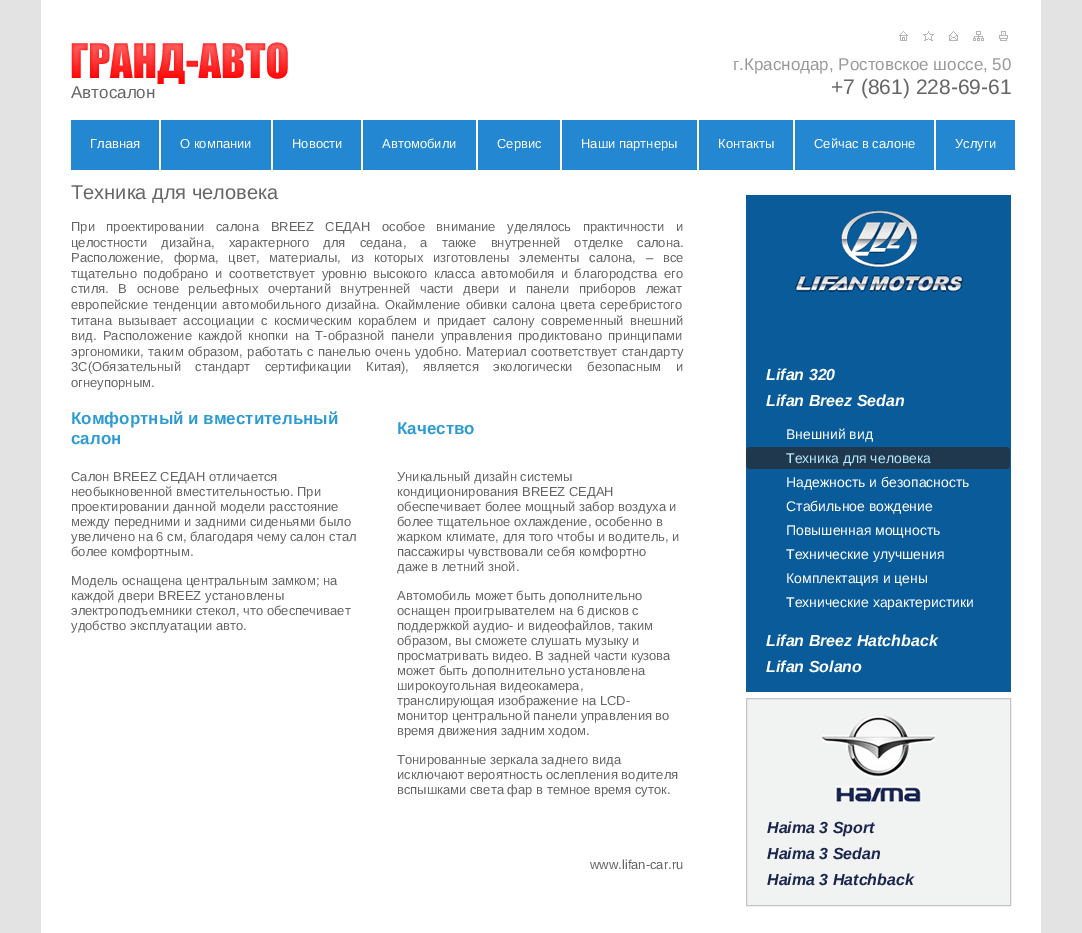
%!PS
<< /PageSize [1082 933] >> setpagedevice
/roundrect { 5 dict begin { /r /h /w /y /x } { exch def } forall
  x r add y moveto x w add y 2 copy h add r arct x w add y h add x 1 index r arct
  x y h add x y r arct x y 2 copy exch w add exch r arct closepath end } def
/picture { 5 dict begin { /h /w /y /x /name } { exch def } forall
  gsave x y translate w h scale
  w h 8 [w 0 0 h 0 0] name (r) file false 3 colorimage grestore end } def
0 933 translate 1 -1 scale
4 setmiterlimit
0.89 setgray
0 0 1082 933 rectfill
1 setgray
41 0 1000 933 rectfill
0.71 setgray
899 31 9 10 rectfill
(img1.rgb) 896 28 15 16 picture
923 31 11 10 rectfill
(img2.rgb) 921 28 15 16 picture
949 31 9 10 rectfill
(img3.rgb) 946 28 15 16 picture
973 31 11 10 rectfill
(img4.rgb) 971 28 15 16 picture
999 31 9 10 rectfill
(img5.rgb) 996 28 15 16 picture
(img6.rgb) 71 42 217 42 picture
/LiberationSans-Regular [17 0 0 -17 0 0] selectfont
0.4 setgray
71 98 moveto (Автосалон) show
0.6 setgray
733 70 moveto (г.Краснодар, Ростовское шоссе, 50) show
/LiberationSans-Regular [21 0 0 -21 0 0] selectfont
0.4 setgray
831 94 moveto (+7 \(861\) 228-69-61) show
0.137 0.529 0.824 setrgbcolor
71 120 88 50 rectfill
/LiberationSans-Regular [13 0 0 -13 0 0] selectfont
1 setgray
90 148 moveto (Главная) show
0.137 0.529 0.824 setrgbcolor
161 120 110 50 rectfill
1 setgray
180 148 moveto (О компании) show
0.137 0.529 0.824 setrgbcolor
273 120 88 50 rectfill
1 setgray
292 148 moveto (Новости) show
0.137 0.529 0.824 setrgbcolor
363 120 113 50 rectfill
1 setgray
382 148 moveto (Автомобили) show
0.137 0.529 0.824 setrgbcolor
478 120 82 50 rectfill
1 setgray
497 148 moveto (Сервис) show
0.137 0.529 0.824 setrgbcolor
562 120 135 50 rectfill
1 setgray
581 148 moveto (Наши партнеры) show
0.137 0.529 0.824 setrgbcolor
699 120 94 50 rectfill
1 setgray
718 148 moveto (Контакты) show
0.137 0.529 0.824 setrgbcolor
795 120 139 50 rectfill
1 setgray
814 148 moveto (Сейчас в салоне) show
0.137 0.529 0.824 setrgbcolor
936 120 79 50 rectfill
1 setgray
955 148 moveto (Услуги) show
/LiberationSans-Regular [20 0 0 -20 0 0] selectfont
0.4 setgray
71 199 moveto (Техника для человека) show
/LiberationSans-Regular [13 0 0 -13 0 0] selectfont
71 231 moveto 8 0 32 (При проектировании салона BREEZ СЕДАН особое внимание уделялось практичности и) widthshow
71 247 moveto 10.5 0 32 (целостности дизайна, характерного для седана, а также внутренней отделке салона.) widthshow
71 262 moveto 6.25 0 32 (Расположение, форма, цвет, материалы, из которых изготовлены элементы салона, – все) widthshow
71 278 moveto 2.9 0 32 (тщательно подобрано и соответствует уровню высокого класса автомобиля и благородства его) widthshow
71 293 moveto 5.9 0 32 (стиля. В основе рельефных очертаний внутренней части двери и панели приборов лежат) widthshow
71 309 moveto 1.5 0 32 (европейские тенденции автомобильного дизайна. Окаймление обивки салона цвета серебристого) widthshow
71 325 moveto 2.75 0 32 (титана вызывает ассоциации с космическим кораблем и придает салону современный внешний) widthshow
71 340 moveto 2.75 0 32 (вид. Расположение каждой кнопки на Т-образной панели управления продиктовано принципами) widthshow
71 356 moveto 0.9 0 32 (эргономики, таким образом, работать с панелью очень удобно. Материал соответствует стандарту) widthshow
71 371 moveto 10.75 0 32 (3C\(Обязательный стандарт сертификации Китая\), является экологически безопасным и) widthshow
71 387 moveto (огнеупорным.) show
/LiberationSans-Bold [17 0 0 -17 0 0] selectfont
0.18 0.612 0.824 setrgbcolor
71 424 moveto (Комфортный и вместительный) show
71 444 moveto (салон) show
397 434 moveto (Качество) show
/LiberationSans-Regular [13 0 0 -13 0 0] selectfont
0.4 setgray
71 481 moveto (Салон BREEZ СЕДАН отличается) show
71 496 moveto (необыкновенной вместительностью. При) show
71 511 moveto (проектировании данной модели расстояние) show
71 526 moveto (между передними и задними сиденьями было) show
71 541 moveto (увеличено на 6 см, благодаря чему салон стал) show
71 556 moveto (более комфортным.) show
71 585 moveto (Модель оснащена центральным замком; на) show
71 600 moveto (каждой двери BREEZ установлены) show
71 615 moveto (электроподъемники стекол, что обеспечивает) show
71 630 moveto (удобство эксплуатации авто.) show
397 481 moveto (Уникальный дизайн системы) show
397 496 moveto (кондиционирования BREEZ СЕДАН) show
397 511 moveto (обеспечивает более мощный забор воздуха и) show
397 526 moveto (более тщательное охлаждение, особенно в) show
397 541 moveto (жарком климате, для того чтобы и водитель, и) show
397 556 moveto (пассажиры чувствовали себя комфортно) show
397 571 moveto (даже в летний зной.) show
397 600 moveto (Автомобиль может быть дополнительно) show
397 615 moveto (оснащен проигрывателем на 6 дисков с) show
397 630 moveto (поддержкой аудио- и видеофайлов, таким) show
397 645 moveto (образом, вы сможете слушать музыку и) show
397 660 moveto (просматривать видео. В задней части кузова) show
397 675 moveto (может быть дополнительно установлена) show
397 690 moveto (широкоугольная видеокамера,) show
397 705 moveto (транслирующая изображение на LCD-) show
397 720 moveto (монитор центральной панели управления во) show
397 735 moveto (время движения задним ходом.) show
397 764 moveto (Тонированные зеркала заднего вида) show
397 779 moveto (исключают вероятность ослепления водителя) show
397 794 moveto (вспышками света фар в темное время суток.) show
590 869 moveto (www.lifan-car.ru) show
0.035 0.361 0.6 setrgbcolor
746 195 265 497 rectfill
(img7.rgb) 795 210 168 82 picture
/LiberationSans-BoldItalic [16 0 0 -16 0 0] selectfont
1 setgray
766 380 moveto (Lifan 320) show
766 406 moveto (Lifan Breez Sedan) show
/LiberationSans-Regular [14 0 0 -14 0 0] selectfont
786 439 moveto (Внешний вид) show
0.122 0.22 0.306 setrgbcolor
746 447 264 22 4 roundrect fill
0.71 0.906 1 setrgbcolor
786 463 moveto (Техника для человека) show
1 setgray
786 487 moveto (Надежность и безопасность) show
786 511 moveto (Стабильное вождение) show
786 535 moveto (Повышенная мощность) show
786 559 moveto (Технические улучшения) show
786 583 moveto (Комплектация и цены) show
786 607 moveto (Технические характеристики) show
/LiberationSans-BoldItalic [16 0 0 -16 0 0] selectfont
766 646 moveto (Lifan Breez Hatchback) show
766 672 moveto (Lifan Solano) show
0.945 0.949 0.949 setrgbcolor
newpath 746.5 698.5 moveto 1010.5 698.5 lineto 1010.5 905.5 lineto 746.5 905.5 lineto closepath gsave fill grestore
0.769 setgray
stroke
(img8.rgb) 822 714 113 88 picture
0.106 0.149 0.31 setrgbcolor
767 833 moveto (Haima 3 Sport) show
767 859 moveto (Haima 3 Sedan) show
767 885 moveto (Haima 3 Hatchback) show
showpage
